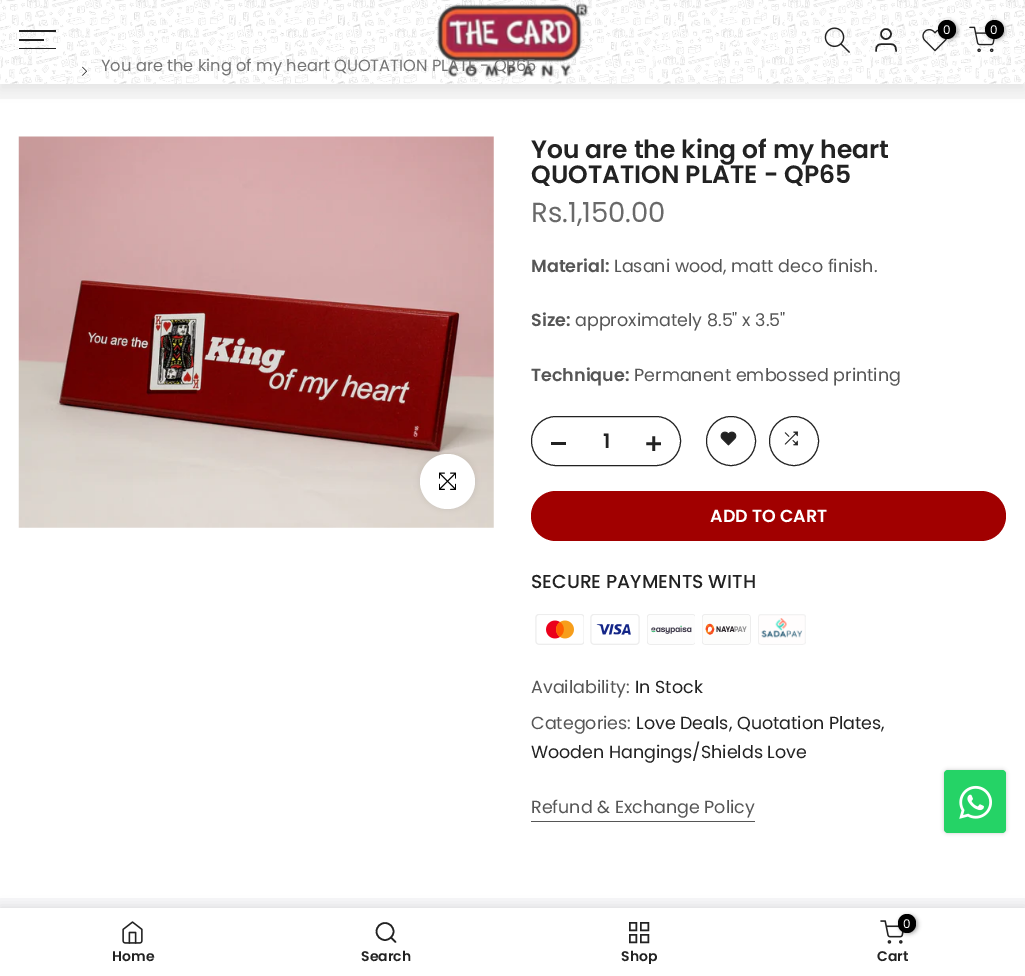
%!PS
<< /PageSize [1025 976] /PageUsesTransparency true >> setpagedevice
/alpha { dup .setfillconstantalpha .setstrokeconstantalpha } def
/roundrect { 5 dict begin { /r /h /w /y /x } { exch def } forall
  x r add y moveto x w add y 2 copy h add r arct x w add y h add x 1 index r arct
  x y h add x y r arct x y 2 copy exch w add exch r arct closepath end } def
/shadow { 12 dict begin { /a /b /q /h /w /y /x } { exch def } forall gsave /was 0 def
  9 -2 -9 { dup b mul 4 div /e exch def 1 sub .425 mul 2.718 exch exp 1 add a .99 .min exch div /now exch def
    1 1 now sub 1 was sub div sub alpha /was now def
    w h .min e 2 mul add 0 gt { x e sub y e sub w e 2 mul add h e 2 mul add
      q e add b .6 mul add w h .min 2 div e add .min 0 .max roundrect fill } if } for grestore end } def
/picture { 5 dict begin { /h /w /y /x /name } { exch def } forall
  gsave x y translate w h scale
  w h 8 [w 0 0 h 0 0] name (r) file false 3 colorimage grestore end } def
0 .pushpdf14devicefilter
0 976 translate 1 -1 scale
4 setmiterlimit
1 setgray
0 0 1025 976 rectfill
0.965 setgray
0 84 1025 15 rectfill
0.898 setgray
0 3 1025 87 0 6 1 shadow
1 setgray
0 0 1025 84 rectfill
(img1.rgb) 0 0 1025 84 picture
0.38 alpha
0 0 1025 84 rectfill
1 alpha
(img2.rgb) 437 3 151 74 picture
(img3.rgb) 824 27 26 26 picture
0.133 setgray
1.5 setlinewidth
newpath 886 34 5 0 360 arc closepath stroke
1 setlinecap
1 setlinejoin
newpath 896 51 moveto 896 43.5 893 44 886 44 curveto 879.5 44 876 43.5 876 51 curveto stroke
(img4.rgb) 922 29 26 23 picture
0 setgray
939 21 19 19 9.5 2 0.3 shadow
938 20 18 19 9 roundrect fill
/Poppins-Regular [12 0 0 -12 0 0] selectfont
1 setgray
943 34 moveto (0) show
(img5.rgb) 969 26 26 27 picture
0 setgray
986 21 19 19 9.5 2 0.3 shadow
newpath 994.5 29.5 9.5 0 360 arc closepath fill
1 setgray
990 34 moveto (0) show
0.133 setgray
19 30 37 2 rectfill
19 39 25 2 rectfill
19 48 37 1 rectfill
(img6.rgb) 82 66 5 10 picture
/Poppins-Regular [16.25 0 0 -16.25 0 0] selectfont
0.455 setgray
101 71 moveto (You are the king of my heart QUOTATION PLATE - QP65) show
(img7.rgb) 18 136 476 392 picture
0 setgray
420 454 55 55 27.5 3 0.09 shadow
1 setgray
newpath 447.5 481.5 27.5 0 360 arc closepath fill
(img8.rgb) 439 472 17 18 picture
/Poppins-SemiBold [25 0 0 -25 0 0] selectfont
0.133 setgray
531 158 moveto (You are the king of my heart) show
531 183 moveto (QUOTATION PLATE - QP65) show
/Poppins-Regular [27.5 0 0 -27.5 0 0] selectfont
0.412 setgray
531 222 moveto (Rs.1,150.00) show
/Poppins-SemiBold [17.5 0 0 -17.5 0 0] selectfont
0.337 setgray
531 272 moveto (Material:) show
/Poppins-Regular [17.5 0 0 -17.5 0 0] selectfont
614 272 moveto (Lasani wood, matt deco finish.) show
/Poppins-SemiBold [17.5 0 0 -17.5 0 0] selectfont
531 326 moveto (Size:) show
/Poppins-Regular [17.5 0 0 -17.5 0 0] selectfont
575 326 moveto (approximately 8.5" x 3.5") show
/Poppins-SemiBold [17.5 0 0 -17.5 0 0] selectfont
531 381 moveto (Technique:) show
/Poppins-Regular [17.5 0 0 -17.5 0 0] selectfont
634 381 moveto (Permanent embossed printing) show
0.133 setgray
1 setlinewidth
0 setlinecap
0 setlinejoin
531.5 416.5 149 49 24.5 roundrect stroke
551 442 15 3 rectfill
/Poppins-SemiBold [20 0 0 -20 0 0] selectfont
603 448 moveto (1) show
(img9.rgb) 646 436 15 15 picture
newpath 731 441 24.5 0 360 arc closepath stroke
(img10.rgb) 720 431 17 15 picture
newpath 794 441 24.5 0 360 arc closepath stroke
(img11.rgb) 784 431 14 15 picture
0.631 0 0 setrgbcolor
531 491 475 50 25 roundrect fill
/Poppins-SemiBold [17.5 0 0 -17.5 0 0] selectfont
1 setgray
710 522 moveto (ADD TO CART) show
/Poppins-Medium [18.75 0 0 -18.75 0 0] selectfont
0.133 setgray
531 588 moveto (SECURE PAYMENTS WITH) show
(img12.rgb) 535 614 49 31 picture
(img13.rgb) 590 614 50 31 picture
(img14.rgb) 647 614 48 31 picture
(img15.rgb) 702 614 49 31 picture
(img16.rgb) 758 614 48 31 picture
/Poppins-Regular [17.5 0 0 -17.5 0 0] selectfont
0.337 setgray
531 693 moveto (Availability:) show
0.133 setgray
635 693 moveto (In Stock) show
0.337 setgray
531 729 moveto (Categories:) show
0.133 setgray
636 729 moveto (Love Deals, Quotation Plates,) show
531 758 moveto (Wooden Hangings/Shields Love) show
0.337 setgray
531 813 moveto (Refund & Exchange Policy) show
531 821 224 1 rectfill
0.965 0.965 0.973 setrgbcolor
0 898 1025 10 rectfill
0 setgray
944 770 62 63 4 2 0.2 shadow
0.145 0.827 0.4 setrgbcolor
944 770 62 63 4 roundrect fill
(img17.rgb) 959 785 33 34 picture
0 setgray
0 908 1025 68 0 5.5 0.12 shadow
1 setgray
0 908 1025 68 rectfill
(img18.rgb) 122 921 21 23 picture
/Poppins-SemiBold [14 0 0 -14 0 0] selectfont
0.133 setgray
112 961 moveto (Home) show
1.6 setlinewidth
newpath 385 931.5 8.5 0 360 arc closepath stroke
1 setlinecap
1 setlinejoin
newpath 395.5 942 moveto 391 937.5 lineto stroke
361 961 moveto (Search) show
1.5 setlinewidth
0 setlinecap
0 setlinejoin
629.75 922.75 6.5 7.5 rectstroke
640.75 922.75 7.5 7.5 rectstroke
629.75 934.75 6.5 7.5 rectstroke
640.75 934.75 7.5 7.5 rectstroke
gsave
525 950 229 14 rectclip
621 961 moveto (Shop) show
grestore
(img19.rgb) 880 920 24 24 picture
0 setgray
899 915 19 19 9.5 2 0.3 shadow
898 914 18 19 9 roundrect fill
/Poppins-Regular [12 0 0 -12 0 0] selectfont
1 setgray
903 928 moveto (0) show
/Poppins-SemiBold [14 0 0 -14 0 0] selectfont
0.133 setgray
877 961 moveto (Cart) show
.poppdf14devicefilter showpage
